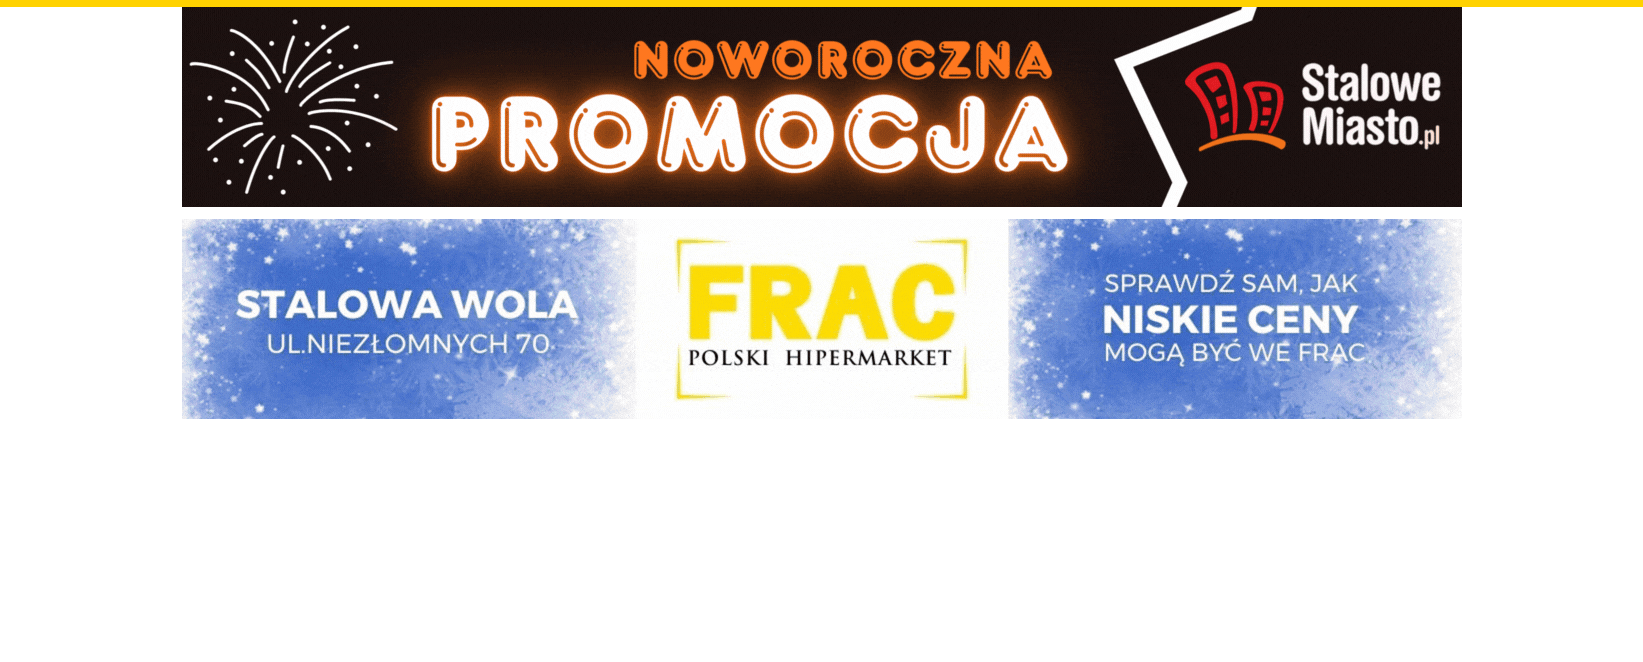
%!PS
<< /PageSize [1643 662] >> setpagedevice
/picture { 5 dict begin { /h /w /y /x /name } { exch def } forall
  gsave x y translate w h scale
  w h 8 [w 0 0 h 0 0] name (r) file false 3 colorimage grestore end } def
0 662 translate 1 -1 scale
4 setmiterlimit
1 setgray
0 0 1643 662 rectfill
1 0.824 0 setrgbcolor
0 0 1643 7 rectfill
(img1.rgb) 182 7 1280 200 picture
(img2.rgb) 182 219 1280 200 picture
showpage
